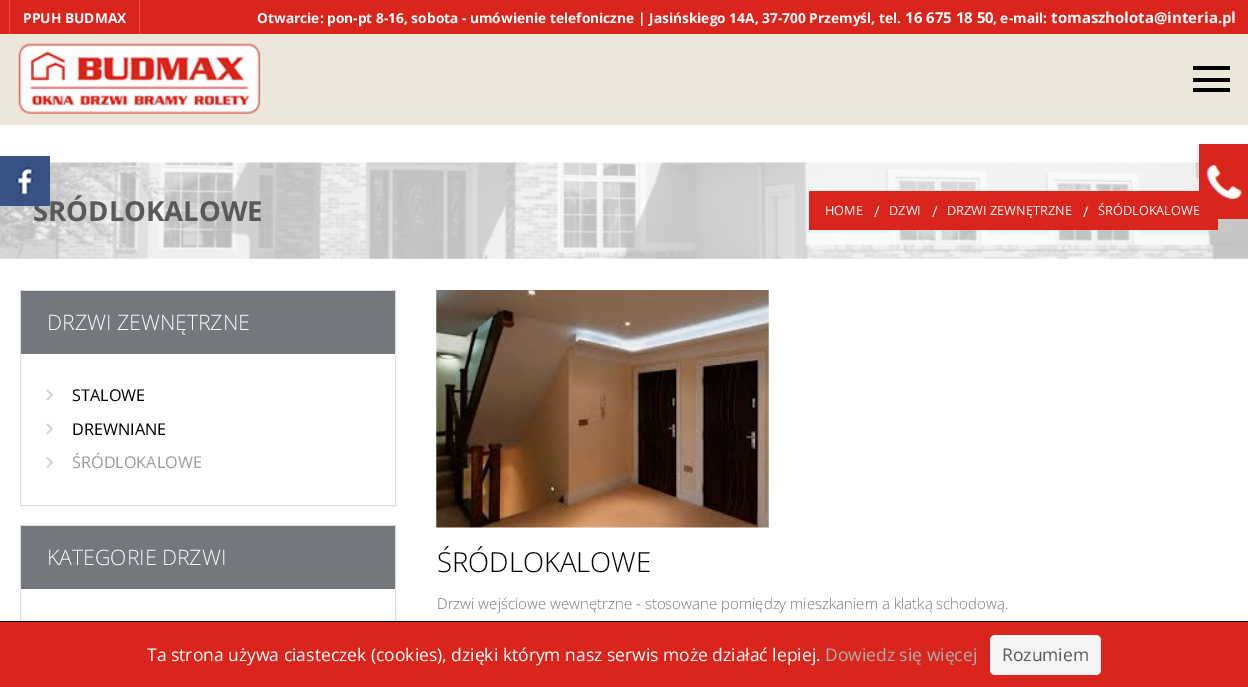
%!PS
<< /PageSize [1248 687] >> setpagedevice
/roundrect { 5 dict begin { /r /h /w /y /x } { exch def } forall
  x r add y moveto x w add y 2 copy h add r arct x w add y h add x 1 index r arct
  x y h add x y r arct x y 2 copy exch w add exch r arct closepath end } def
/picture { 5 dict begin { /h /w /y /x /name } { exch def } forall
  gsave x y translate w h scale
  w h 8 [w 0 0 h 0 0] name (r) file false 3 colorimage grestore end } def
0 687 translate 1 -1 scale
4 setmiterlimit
1 setgray
0 0 1248 687 rectfill
0.855 0.145 0.11 setrgbcolor
0 0 1248 34 rectfill
1 0.282 0.259 setrgbcolor
139 0 1 34 rectfill
9 0 1 34 rectfill
/OpenSans-Bold [13.75 0 0 -13.75 0 0] selectfont
1 setgray
23 23 moveto (PPUH BUDMAX) show
257 23 moveto (Otwarcie: pon-pt 8-16, sobota - umówienie telefoniczne | Jasińskiego 14A, 37-700 Przemyśl, tel.) show
/OpenSans-Bold [15 0 0 -15 0 0] selectfont
905 23 moveto (16 675 18 50) show
/OpenSans-Bold [13.75 0 0 -13.75 0 0] selectfont
993 23 moveto (, e-mail:) show
/OpenSans-Bold [15 0 0 -15 0 0] selectfont
1051 23 moveto (tomaszholota@interia.pl) show
0.922 0.906 0.859 setrgbcolor
0 34 1248 91 rectfill
(img1.rgb) 18 43 243 71 picture
0 setgray
1193 66 37 4 rectfill
1193 88 37 4 rectfill
1193 78 37 4 rectfill
(img4.rgb) 0 162 1248 97 picture
/OpenSans-Bold [27.5 0 0 -27.5 0 0] selectfont
0.349 setgray
33 221 moveto (ŚRÓDLOKALOWE) show
(img2.rgb) 0 156 50 50 picture
0.855 0.145 0.11 setrgbcolor
809 191 409 39 rectfill
/OpenSans-Regular [12.75 0 0 -12.75 0 0] selectfont
1 setgray
1098 215 moveto (ŚRÓDLOKALOWE) show
0.855 0.145 0.11 setrgbcolor
1199 144 49 75 rectfill
(img3.rgb) 1206 164 36 35 picture
1 setgray
825 215 moveto (HOME) show
/OpenSans-Regular [15 0 0 -15 0 0] selectfont
874 217 moveto (/) show
/OpenSans-Regular [12.75 0 0 -12.75 0 0] selectfont
889 215 moveto (DZWI) show
/OpenSans-Regular [15 0 0 -15 0 0] selectfont
932 217 moveto (/) show
/OpenSans-Regular [12.75 0 0 -12.75 0 0] selectfont
947 215 moveto (DRZWI ZEWNĘTRZNE) show
/OpenSans-Regular [15 0 0 -15 0 0] selectfont
1083 217 moveto (/) show
0.875 setgray
20.5 290.5 375 215 rectstroke
0.455 0.467 0.482 setrgbcolor
21 291 374 63 rectfill
/OpenSans-Light [21.25 0 0 -21.25 0 0] selectfont
1 setgray
47 330 moveto (DRZWI ZEWNĘTRZNE) show
(img5.rgb) 46 390 7 10 picture
/OpenSans-Regular [16.25 0 0 -16.25 0 0] selectfont
0 setgray
72 401 moveto (STALOWE) show
(img6.rgb) 46 423 7 11 picture
72 435 moveto (DREWNIANE) show
(img7.rgb) 46 457 7 11 picture
0.616 setgray
72 468 moveto (ŚRÓDLOKALOWE) show
0.875 setgray
20.5 525.5 375 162 rectstroke
0.455 0.467 0.482 setrgbcolor
21 526 374 63 rectfill
/OpenSans-Light [21.25 0 0 -21.25 0 0] selectfont
1 setgray
47 565 moveto (KATEGORIE DRZWI) show
(img8.rgb) 436 290 333 238 picture
/OpenSans-Light [27.5 0 0 -27.5 0 0] selectfont
0 0 0.047 setrgbcolor
437 572 moveto (ŚRÓDLOKALOWE) show
/OpenSans-Light [15 0 0 -15 0 0] selectfont
0.455 0.467 0.482 setrgbcolor
437 609 moveto (Drzwi wejściowe wewnętrzne - stosowane pomiędzy mieszkaniem a klatką schodową.) show
0.855 0.145 0.11 setrgbcolor
0 622 1248 65 rectfill
0 setgray
0 621 1248 1 rectfill
/OpenSans-Regular [17.5 0 0 -17.5 0 0] selectfont
1 setgray
147 661 moveto (Ta strona używa ciasteczek \(cookies\), dzięki którym nasz serwis może działać lepiej.) show
0.682 setgray
825 661 moveto (Dowiedz się więcej) show
0.961 setgray
990 635 111 40 5 roundrect fill
0.349 setgray
1002 661 moveto (Rozumiem) show
showpage
